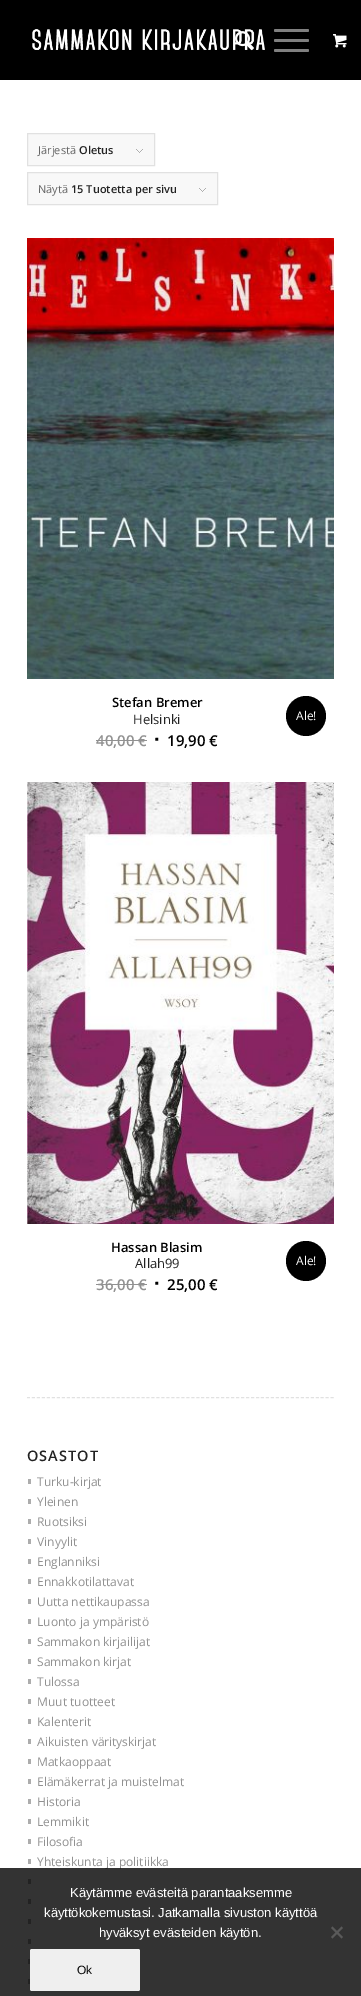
%!PS
<< /PageSize [361 1996] /PageUsesTransparency true >> setpagedevice
/alpha { dup .setfillconstantalpha .setstrokeconstantalpha } def
/roundrect { 5 dict begin { /r /h /w /y /x } { exch def } forall
  x r add y moveto x w add y 2 copy h add r arct x w add y h add x 1 index r arct
  x y h add x y r arct x y 2 copy exch w add exch r arct closepath end } def
/picture { 5 dict begin { /h /w /y /x /name } { exch def } forall
  gsave x y translate w h scale
  w h 8 [w 0 0 h 0 0] name (r) file false 3 colorimage grestore end } def
0 .pushpdf14devicefilter
0 1996 translate 1 -1 scale
4 setmiterlimit
1 setgray
0 0 361 1996 rectfill
0 setgray
0 0 361 80 rectfill
(img1.rgb) 32 29 233 21 picture
(img2.rgb) 235 31 19 20 picture
0.502 setgray
274 39 35 3 1.5 roundrect fill
274 29 35 3 1.5 roundrect fill
274 49 35 3 1.5 roundrect fill
(img3.rgb) 333 34 14 14 picture
0.973 setgray
28 134 126 31 rectfill
(img4.rgb) 136 149 7 4 picture
0.882 setgray
27.5 133.5 127 32 rectstroke
/OpenSans-Regular [11 0 0 -11 0 0] selectfont
0.4 setgray
38 154 moveto (Järjestä) show
/OpenSans-SemiBold [11 0 0 -11 0 0] selectfont
0.133 setgray
79 154 moveto (Oletus) show
0.973 setgray
28 173 189 31 rectfill
(img4.rgb) 199 188 7 4 picture
0.882 setgray
27.5 172.5 190 32 rectstroke
/OpenSans-Regular [11 0 0 -11 0 0] selectfont
0.4 setgray
38 193 moveto (Näytä) show
/OpenSans-SemiBold [11 0 0 -11 0 0] selectfont
0.133 setgray
71 193 moveto (15 Tuotetta per sivu) show
(img5.rgb) 27 238 307 441 picture
/OpenSans-SemiBold [13 0 0 -13 0 0] selectfont
0 setgray
112 707 moveto (Stefan Bremer) show
/OpenSans-Regular [13 0 0 -13 0 0] selectfont
0.133 setgray
133 724 moveto (Helsinki) show
0 setgray
newpath 306 716 20 0 360 arc closepath fill
/OpenSans-Regular [12 0 0 -12 0 0] selectfont
1 setgray
296 720 moveto (Ale!) show
/OpenSans-SemiBold [15 0 0 -15 0 0] selectfont
0.569 setgray
96 746 moveto (40,00 €) show
96 740 51 1 rectfill
/LiberationSans-Bold [20 0 0 -20 0 0] selectfont
0 setgray
154 746 moveto (∙) show
/OpenSans-SemiBold [15 0 0 -15 0 0] selectfont
167 746 moveto (19,90 €) show
(img6.rgb) 27 782 307 442 picture
/OpenSans-SemiBold [13 0 0 -13 0 0] selectfont
111 1252 moveto (Hassan Blasim) show
/OpenSans-Regular [13 0 0 -13 0 0] selectfont
0.133 setgray
135 1268 moveto (Allah99) show
0 setgray
newpath 306 1261 20 0 360 arc closepath fill
/OpenSans-Regular [12 0 0 -12 0 0] selectfont
1 setgray
296 1265 moveto (Ale!) show
/OpenSans-SemiBold [15 0 0 -15 0 0] selectfont
0.569 setgray
96 1290 moveto (36,00 €) show
96 1284 51 1 rectfill
/LiberationSans-Bold [20 0 0 -20 0 0] selectfont
0 setgray
154 1290 moveto (∙) show
/OpenSans-SemiBold [15 0 0 -15 0 0] selectfont
167 1290 moveto (25,00 €) show
0.882 setgray
[3 1.98] 0 setdash
newpath 27 1397.5 moveto 334 1397.5 lineto stroke
/OpenSans-SemiBold [14.5 0 0 -14.5 0 0] selectfont
0.133 setgray
27 1461 moveto 1 0 (OSASTOT) ashow
/OpenSans-Regular [12 0 0 -12 0 0] selectfont
0.569 setgray
37 1486 moveto (Turku-kirjat) show
0.675 setgray
28 1479 3 5 rectfill
0.569 setgray
37 1506 moveto (Yleinen) show
0.675 setgray
28 1499 3 5 rectfill
0.569 setgray
37 1526 moveto (Ruotsiksi) show
0.675 setgray
28 1519 3 5 rectfill
0.569 setgray
37 1546 moveto (Vinyylit) show
0.675 setgray
28 1539 3 5 rectfill
0.569 setgray
37 1566 moveto (Englanniksi) show
0.675 setgray
28 1559 3 5 rectfill
0.569 setgray
37 1586 moveto (Ennakkotilattavat) show
0.675 setgray
28 1579 3 5 rectfill
0.569 setgray
37 1606 moveto (Uutta nettikaupassa) show
0.675 setgray
28 1599 3 5 rectfill
0.569 setgray
37 1626 moveto (Luonto ja ympäristö) show
0.675 setgray
28 1619 3 5 rectfill
0.569 setgray
37 1646 moveto (Sammakon kirjailijat) show
0.675 setgray
28 1639 3 5 rectfill
0.569 setgray
37 1666 moveto (Sammakon kirjat) show
0.675 setgray
28 1659 3 5 rectfill
0.569 setgray
37 1686 moveto (Tulossa) show
0.675 setgray
28 1679 3 5 rectfill
0.569 setgray
37 1706 moveto (Muut tuotteet) show
0.675 setgray
28 1699 3 5 rectfill
0.569 setgray
37 1726 moveto (Kalenterit) show
0.675 setgray
28 1719 3 5 rectfill
0.569 setgray
37 1746 moveto (Aikuisten värityskirjat) show
0.675 setgray
28 1739 3 5 rectfill
0.569 setgray
37 1766 moveto (Matkaoppaat) show
0.675 setgray
28 1759 3 5 rectfill
0.569 setgray
37 1786 moveto (Elämäkerrat ja muistelmat) show
0.675 setgray
28 1779 3 5 rectfill
0.569 setgray
37 1806 moveto (Historia) show
0.675 setgray
28 1799 3 5 rectfill
0.569 setgray
37 1826 moveto (Lemmikit) show
0.675 setgray
28 1819 3 5 rectfill
0.569 setgray
37 1846 moveto (Filosofia) show
0.675 setgray
28 1839 3 5 rectfill
0.569 setgray
37 1866 moveto (Yhteiskunta ja politiikka) show
0.675 setgray
28 1859 3 5 rectfill
28 1879 3 5 rectfill
28 1899 3 5 rectfill
28 1919 3 5 rectfill
28 1939 3 5 rectfill
28 1959 2 5 rectfill
28 1979 2 5 rectfill
0.8 alpha
0 setgray
0 1868 361 128 rectfill
/LiberationSans-Regular [13 0 0 -13 0 0] selectfont
1 alpha
1 setgray
70 1897 moveto (Käytämme evästeitä parantaaksemme) show
44 1917 moveto (käyttökokemustasi. Jatkamalla sivuston käyttöä) show
99 1937 moveto (hyväksyt evästeiden käytön.) show
0.353 setgray
newpath 341.5 1926.5 moveto 343 1928 lineto 332.5 1938.5 lineto 331 1937 lineto closepath fill
newpath 331 1928 moveto 332.5 1926.5 lineto 343 1937 lineto 341.5 1938.5 lineto closepath fill
0.937 setgray
30 1949 110 42 2 roundrect fill
/LiberationSans-Regular [12 0 0 -12 0 0] selectfont
0 setgray
77 1974 moveto (Ok) show
.poppdf14devicefilter showpage
